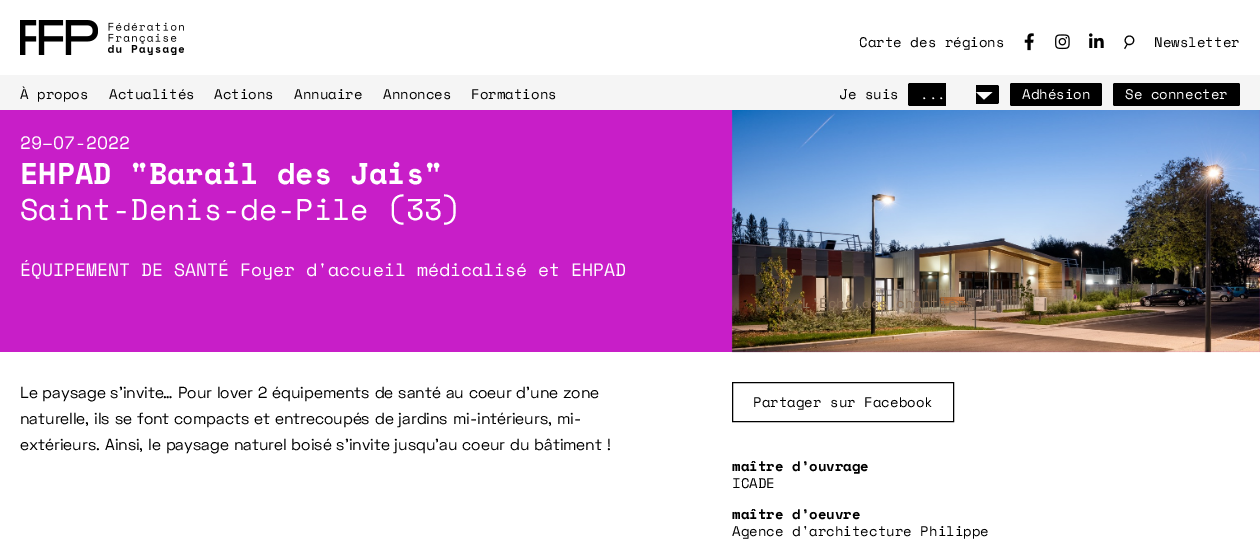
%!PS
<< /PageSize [1260 550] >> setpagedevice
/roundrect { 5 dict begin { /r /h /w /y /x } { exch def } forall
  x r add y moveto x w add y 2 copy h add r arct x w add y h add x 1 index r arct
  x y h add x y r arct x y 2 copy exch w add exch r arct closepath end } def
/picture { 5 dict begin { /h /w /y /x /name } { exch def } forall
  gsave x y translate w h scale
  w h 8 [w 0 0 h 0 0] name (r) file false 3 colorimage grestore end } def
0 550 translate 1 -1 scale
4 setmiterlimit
1 setgray
0 0 1260 550 rectfill
(img1.rgb) 20 20 78 35 picture
(img2.rgb) 108 22 76 33 picture
/SpaceMono-Regular [14 0 0 -14 0 0] selectfont
0 setgray
859 47 moveto (Carte des régions) show
(img3.rgb) 1024 33 10 18 picture
(img4.rgb) 1055 34 15 16 picture
(img5.rgb) 1089 33 15 15 picture
/SpaceMono-Regular [17 0 0 -17 0 0] selectfont
1124 48 moveto (♩) show
/SpaceMono-Regular [14 0 0 -14 0 0] selectfont
1154 47 moveto (Newsletter) show
0.961 setgray
0 75 1260 35 rectfill
0 setgray
20 99 moveto (À propos) show
109 99 moveto (Actualités) show
214 99 moveto (Actions) show
0.784 0.118 0.784 setrgbcolor
0 110 1260 242 rectfill
(img6.rgb) 731 110 529 243 picture
0.533 0.439 0.349 setrgbcolor
802 308 moveto (L’Écho des chantiers) show
0 setgray
294 99 moveto (Annuaire) show
383 99 moveto (Annonces) show
471 99 moveto (Formations) show
839 99 moveto (Je suis) show
newpath 910 83 moveto 946 83 lineto 946 106 lineto 910 106 lineto 909 106 908 105 908 104 curveto 908 85 lineto 908 84 909 83 910 83 curveto closepath fill
newpath 976 85 moveto 997 85 lineto 998 85 999 86 999 87 curveto 999 102 lineto 999 103 998 104 997 104 curveto 976 104 lineto closepath fill
1 setgray
920 99 moveto (...) show
0.976 setgray
newpath 984 99.5 moveto 992.5 92 lineto 976 92 lineto closepath fill
0 setgray
1010 83 92 23 2 roundrect fill
1 setgray
1022 99 moveto (Adhésion) show
0 setgray
1113 83 127 23 2 roundrect fill
1 setgray
1125 99 moveto (Se connecter) show
/SpaceMono-Regular [18 0 0 -18 0 0] selectfont
20 149 moveto (29–07-2022) show
/SpaceMono-Bold [30 0 0 -30 0 0] selectfont
20 184 moveto (EHPAD "Barail des Jais") show
/SpaceMono-Regular [30 0 0 -30 0 0] selectfont
20 220 moveto (Saint-Denis-de-Pile \(33\)) show
/SpaceMono-Regular [18 0 0 -18 0 0] selectfont
20 276 moveto (ÉQUIPEMENT DE SANTÉ Foyer d'accueil médicalisé et EHPAD) show
/SpaceGrotesk-Regular [16 0 0 -16 0 0] selectfont
0 setgray
20 398 moveto (Le paysage s’invite… Pour lover 2 équipements de santé au coeur d’une zone) show
20 424 moveto (naturelle, ils se font compacts et entrecoupés de jardins mi-intérieurs, mi-) show
20 450 moveto (extérieurs. Ainsi, le paysage naturel boisé s’invite jusqu’au coeur du bâtiment !) show
732.5 382.5 221 39 rectstroke
/SpaceMono-Regular [14 0 0 -14 0 0] selectfont
753 407 moveto (Partager sur Facebook) show
/SpaceMono-Bold [14 0 0 -14 0 0] selectfont
732 471 moveto (maître d’ouvrage) show
/SpaceMono-Regular [14 0 0 -14 0 0] selectfont
732 488 moveto (ICADE) show
/SpaceMono-Bold [14 0 0 -14 0 0] selectfont
732 519 moveto (maître d’oeuvre) show
/SpaceMono-Regular [14 0 0 -14 0 0] selectfont
732 536 moveto (Agence d'architecture Philippe) show
showpage
